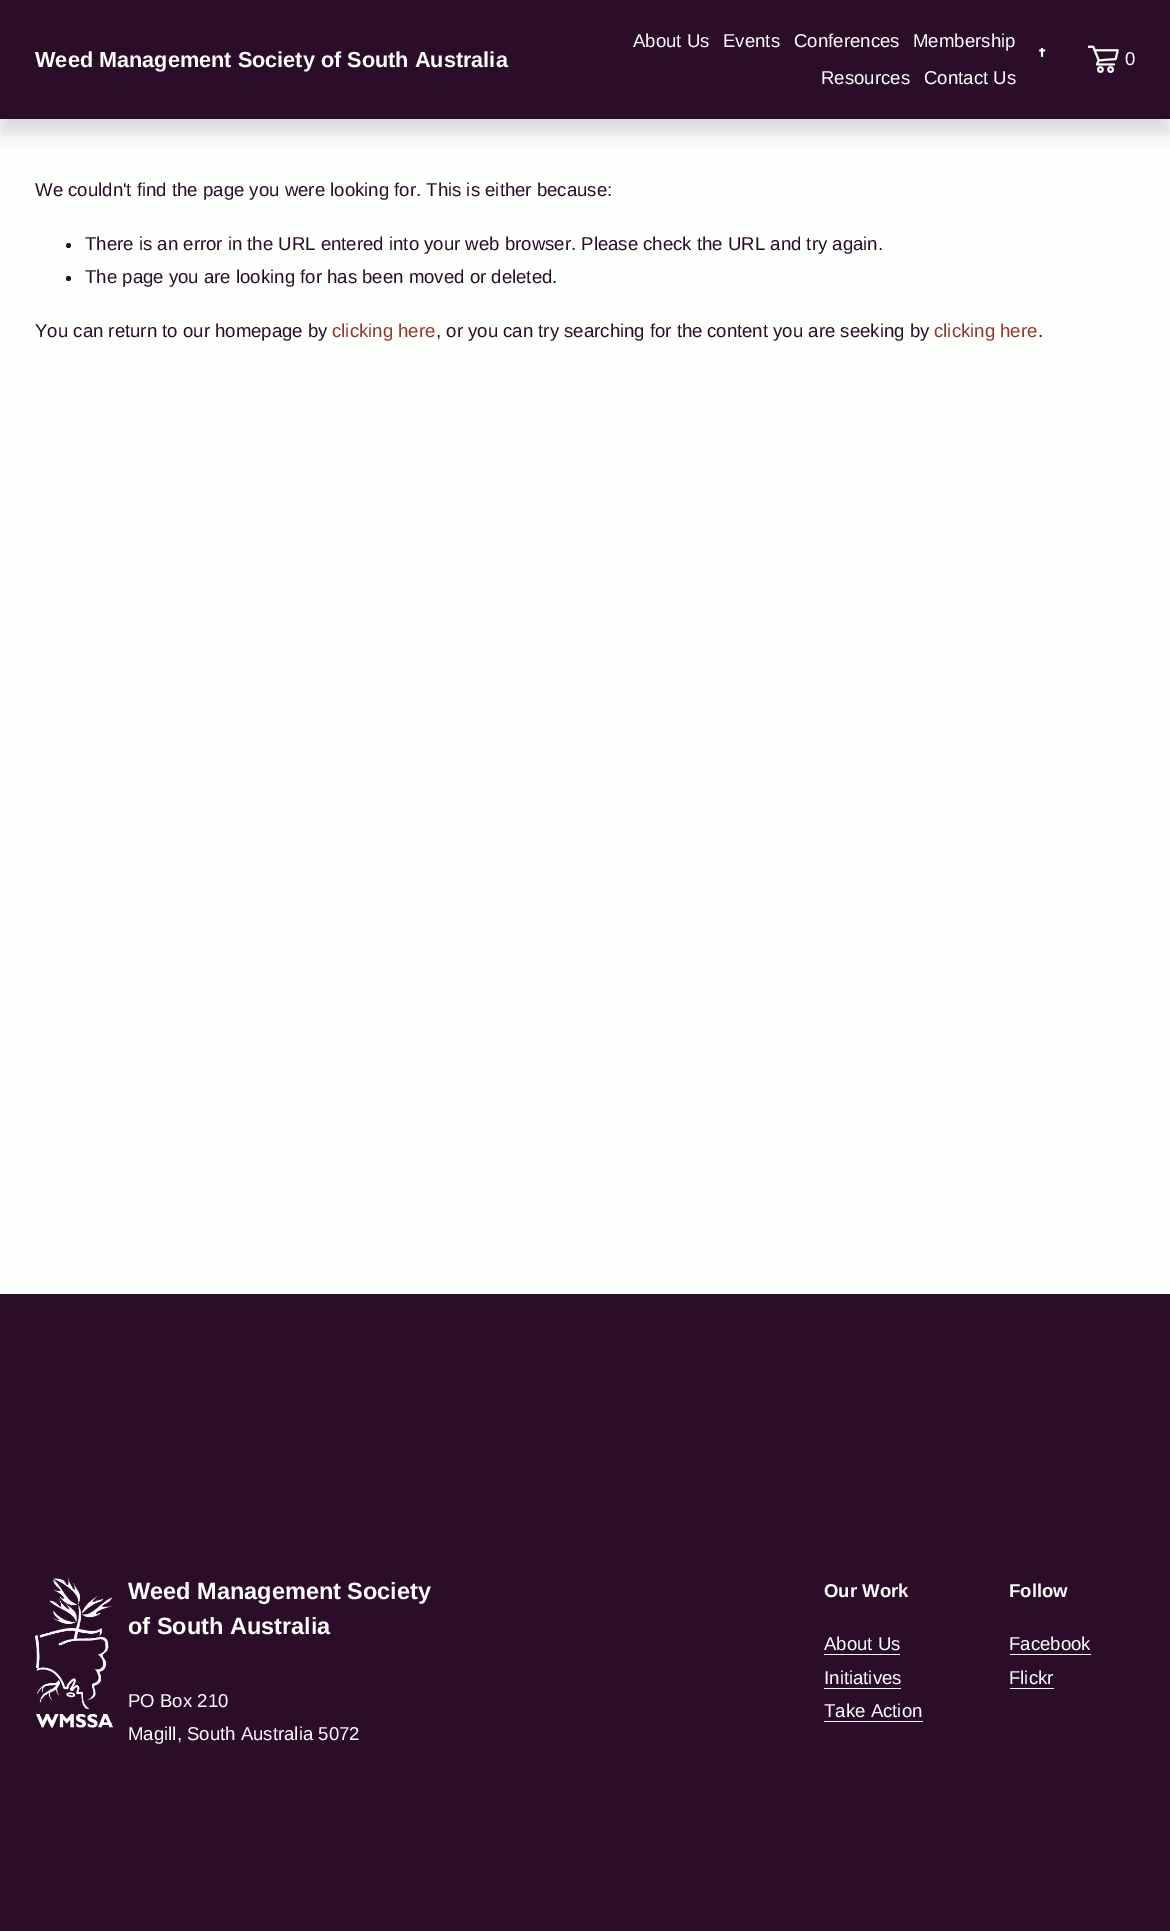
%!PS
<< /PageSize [1170 1931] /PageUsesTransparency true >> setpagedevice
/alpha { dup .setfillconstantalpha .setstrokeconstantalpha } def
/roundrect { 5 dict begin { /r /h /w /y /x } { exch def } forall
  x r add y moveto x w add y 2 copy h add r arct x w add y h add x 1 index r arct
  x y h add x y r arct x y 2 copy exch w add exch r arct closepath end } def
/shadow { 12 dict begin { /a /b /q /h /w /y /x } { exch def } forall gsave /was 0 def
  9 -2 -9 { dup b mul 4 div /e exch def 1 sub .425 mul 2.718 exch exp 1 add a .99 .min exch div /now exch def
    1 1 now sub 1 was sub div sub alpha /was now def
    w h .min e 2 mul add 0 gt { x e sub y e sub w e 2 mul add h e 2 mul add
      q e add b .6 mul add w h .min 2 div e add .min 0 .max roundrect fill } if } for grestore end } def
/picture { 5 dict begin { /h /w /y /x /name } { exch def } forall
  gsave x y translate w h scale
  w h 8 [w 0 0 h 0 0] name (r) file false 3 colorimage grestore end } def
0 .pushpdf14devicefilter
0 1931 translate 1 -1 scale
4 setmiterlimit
0.992 1 0.988 setrgbcolor
0 0 1170 1931 rectfill
0.169 0.051 0.165 setrgbcolor
0 0 1170 119 rectfill
gsave
newpath 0 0 moveto 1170 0 lineto 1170 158 lineto 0 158 lineto closepath 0 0 moveto 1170 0 lineto 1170 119 lineto 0 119 lineto closepath eoclip newpath
0 15 1170 119 0 7.5 0.15 shadow
grestore
/LiberationSans-Bold [21.7 0 0 -21.7 0 0] selectfont
0.992 1 0.988 setrgbcolor
35 67 moveto (Weed Management Society of South Australia) show
/LiberationSans-Regular [18.6 0 0 -18.6 0 0] selectfont
633 47 moveto (About Us) show
723 47 moveto (Events) show
794 47 moveto (Conferences) show
913 47 moveto (Membership) show
821 84 moveto (Resources) show
924 84 moveto (Contact Us) show
(img1.rgb) 1039 48 7 9 picture
(img2.rgb) 1088 45 31 28 picture
1125 65 moveto (0) show
0.169 0.051 0.165 setrgbcolor
35 196 moveto (We couldn't find the page you were looking for. This is either because:) show
newpath 68.5 245.5 2.5 0 360 arc closepath fill
85 250 moveto (There is an error in the URL entered into your web browser. Please check the URL and try again.) show
newpath 68.5 278.5 2.5 0 360 arc closepath fill
85 283 moveto (The page you are looking for has been moved or deleted.) show
35 337 moveto (You can return to our homepage by) show
0.596 0.212 0.157 setrgbcolor
332 337 moveto (clicking here) show
0.169 0.051 0.165 setrgbcolor
436 337 moveto (, or you can try searching for the) show
707 337 moveto (content you are seeking by) show
0.596 0.212 0.157 setrgbcolor
934 337 moveto (clicking here) show
0.169 0.051 0.165 setrgbcolor
1038 337 moveto (.) show
0 1294 1170 637 rectfill
(img3.rgb) 35 1577 78 151 picture
/LiberationSans-Bold [23.5 0 0 -23.5 0 0] selectfont
0.992 1 0.988 setrgbcolor
128 1599 moveto (Weed Management Society) show
128 1634 moveto (of South Australia) show
/LiberationSans-Regular [18.6 0 0 -18.6 0 0] selectfont
128 1707 moveto (PO Box 210) show
128 1740 moveto (Magill, South Australia 5072) show
/LiberationSans-Bold [18.6 0 0 -18.6 0 0] selectfont
824 1597 moveto (Our Work) show
/LiberationSans-Regular [18.6 0 0 -18.6 0 0] selectfont
824 1650 moveto (About Us) show
1 setgray
824 1654 76 1 rectfill
0.992 1 0.988 setrgbcolor
824 1684 moveto (Initiatives) show
1 setgray
824 1688 77 1 rectfill
0.992 1 0.988 setrgbcolor
824 1717 moveto (Take Action) show
1 setgray
824 1721 99 1 rectfill
/LiberationSans-Bold [18.6 0 0 -18.6 0 0] selectfont
0.992 1 0.988 setrgbcolor
1009 1597 moveto (Follow) show
/LiberationSans-Regular [18.6 0 0 -18.6 0 0] selectfont
1009 1650 moveto (Facebook) show
1 setgray
1010 1654 81 1 rectfill
0.992 1 0.988 setrgbcolor
1009 1684 moveto (Flickr) show
1 setgray
1010 1688 44 1 rectfill
.poppdf14devicefilter showpage
